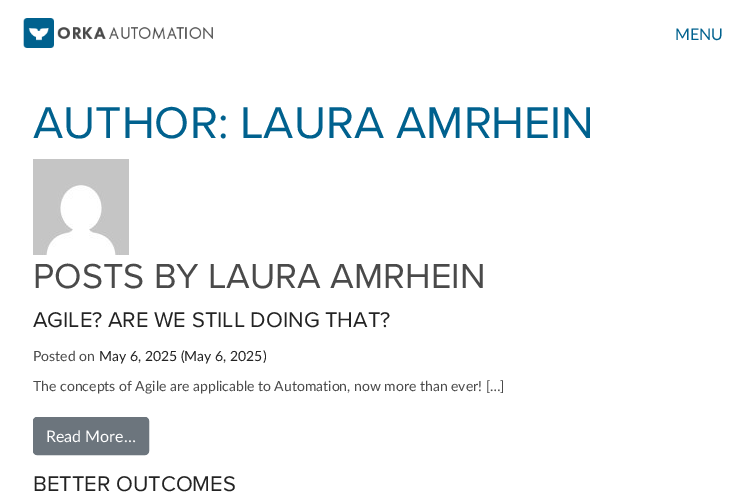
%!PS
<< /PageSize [756 499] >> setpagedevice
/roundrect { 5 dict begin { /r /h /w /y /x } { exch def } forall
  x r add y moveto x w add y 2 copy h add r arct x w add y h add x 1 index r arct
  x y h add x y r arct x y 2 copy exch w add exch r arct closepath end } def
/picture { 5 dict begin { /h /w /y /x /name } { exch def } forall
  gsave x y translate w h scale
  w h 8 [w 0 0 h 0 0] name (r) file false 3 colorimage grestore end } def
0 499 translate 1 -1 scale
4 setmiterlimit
1 setgray
0 0 756 499 rectfill
(img1.rgb) 23 18 190 30 picture
/Lato-Regular [16 0 0 -16 0 0] selectfont
0 0.38 0.557 setrgbcolor
675 40 moveto (MENU) show
/ProximaNova-Regular [46 0 0 -46 0 0] selectfont
33 138 moveto (AUTHOR: LAURA AMRHEIN) show
(img2.rgb) 33 159 96 96 picture
/ProximaNova-Regular [36 0 0 -36 0 0] selectfont
0.29 setgray
33 288 moveto (POSTS BY LAURA AMRHEIN) show
/ProximaNova-Regular [22 0 0 -22 0 0] selectfont
0.137 setgray
33 327 moveto (AGILE? ARE WE STILL DOING THAT?) show
/Lato-Regular [14 0 0 -14 0 0] selectfont
0.29 setgray
33 361 moveto (Posted on) show
0.137 setgray
99 361 moveto (May 6, 2025 \(May 6, 2025\)) show
0.29 setgray
33 391 moveto (The concepts of Agile are applicable to Automation, now more than ever! […]) show
0.424 0.459 0.49 setrgbcolor
33.5 417.5 115 37 3.5 roundrect gsave fill grestore
stroke
/Lato-Regular [16 0 0 -16 0 0] selectfont
1 setgray
46 442 moveto (Read More…) show
/ProximaNova-Regular [22 0 0 -22 0 0] selectfont
0.137 setgray
33 491 moveto (BETTER OUTCOMES) show
showpage
